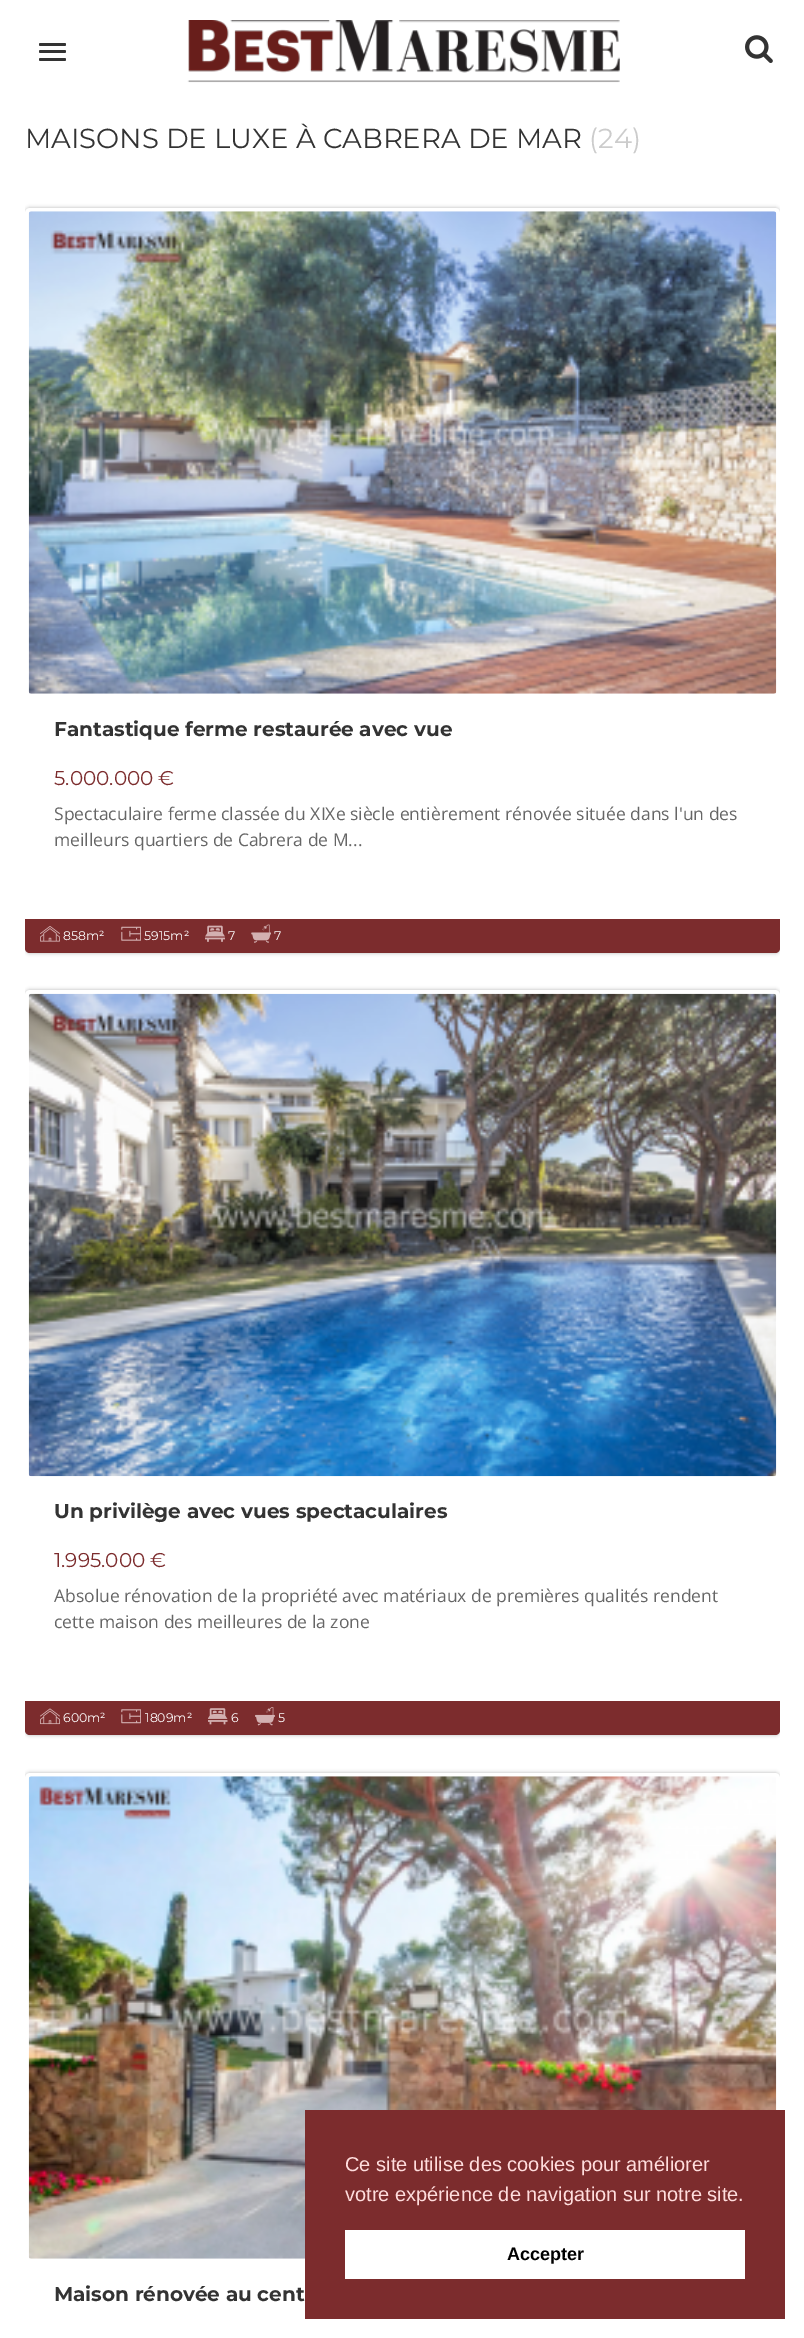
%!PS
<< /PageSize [804 2338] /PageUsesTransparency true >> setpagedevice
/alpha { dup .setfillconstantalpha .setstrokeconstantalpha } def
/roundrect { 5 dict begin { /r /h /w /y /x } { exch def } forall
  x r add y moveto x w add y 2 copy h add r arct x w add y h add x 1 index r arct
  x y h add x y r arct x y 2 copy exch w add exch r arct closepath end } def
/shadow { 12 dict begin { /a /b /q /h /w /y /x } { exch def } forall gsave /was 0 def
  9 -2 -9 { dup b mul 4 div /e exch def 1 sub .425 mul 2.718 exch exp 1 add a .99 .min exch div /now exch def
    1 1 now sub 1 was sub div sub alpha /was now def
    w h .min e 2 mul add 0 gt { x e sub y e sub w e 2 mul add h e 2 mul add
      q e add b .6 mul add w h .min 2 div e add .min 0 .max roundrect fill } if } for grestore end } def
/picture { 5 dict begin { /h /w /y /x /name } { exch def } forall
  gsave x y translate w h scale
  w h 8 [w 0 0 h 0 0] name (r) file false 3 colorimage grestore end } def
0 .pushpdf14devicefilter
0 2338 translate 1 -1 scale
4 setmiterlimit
1 setgray
0 0 804 2338 rectfill
0.2 setgray
39 43 27 3 1.5 roundrect fill
39 50 27 3 1.5 roundrect fill
39 58 27 3 1.5 roundrect fill
(img1.rgb) 187 20 433 63 picture
(img2.rgb) 745 35 28 28 picture
/Montserrat-Regular [27.5 0 0 -27.5 0 0] selectfont
25 148 moveto (MAISONS DE LUXE À CABRERA DE MAR) show
0.8 setgray
589 148 moveto (\(24\)) show
gsave
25 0 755 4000 rectclip
newpath 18 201 moveto 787 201 lineto 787 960 lineto 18 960 lineto closepath 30 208 moveto 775 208 lineto 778 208 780 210 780 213 curveto 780 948 lineto 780 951 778 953 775 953 curveto 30 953 lineto 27 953 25 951 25 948 curveto 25 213 lineto 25 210 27 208 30 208 curveto closepath eoclip newpath
0.016 setgray
25 208 755 745 5 2 0.3 shadow
grestore
1 setgray
4 setlinewidth
27 210 751 707 3 roundrect stroke
(img3.rgb) 28 211 749 483 picture
/Montserrat-Bold [20 0 0 -20 0 0] selectfont
0.2 setgray
54 736 moveto (Fantastique ferme restaurée avec vue) show
/Montserrat-Regular [20 0 0 -20 0 0] selectfont
0.486 0.173 0.176 setrgbcolor
54 785 moveto (5.000.000 €) show
/OpenSans-Regular [17.5 0 0 -17.5 0 0] selectfont
0.4 setgray
54 820 moveto (Spectaculaire ferme classée du XIXe siècle entièrement rénovée située dans l'un des) show
54 846 moveto (meilleurs quartiers de Cabrera de M...) show
0.486 0.173 0.176 setrgbcolor
newpath 25 919 moveto 780 919 lineto 780 948 lineto 780 951 778 953 775 953 curveto 30 953 lineto 27 953 25 951 25 948 curveto closepath fill
(img4.rgb) 40 926 20 16 picture
/Montserrat-Regular [12.5 0 0 -12.5 0 0] selectfont
1 setgray
63 940 moveto (858m²) show
(img5.rgb) 121 926 20 15 picture
144 940 moveto (5915m²) show
(img6.rgb) 205 925 20 17 picture
228 940 moveto (7) show
(img7.rgb) 251 924 20 19 picture
274 940 moveto (7) show
gsave
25 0 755 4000 rectclip
newpath 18 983 moveto 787 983 lineto 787 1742 lineto 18 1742 lineto closepath 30 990 moveto 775 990 lineto 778 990 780 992 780 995 curveto 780 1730 lineto 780 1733 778 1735 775 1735 curveto 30 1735 lineto 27 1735 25 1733 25 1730 curveto 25 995 lineto 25 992 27 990 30 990 curveto closepath eoclip newpath
0.016 setgray
25 990 755 745 5 2 0.3 shadow
grestore
27 992 751 707 3 roundrect stroke
(img8.rgb) 28 993 749 484 picture
/Montserrat-Bold [20 0 0 -20 0 0] selectfont
0.2 setgray
54 1518 moveto (Un privilège avec vues spectaculaires) show
/Montserrat-Regular [20 0 0 -20 0 0] selectfont
0.486 0.173 0.176 setrgbcolor
54 1567 moveto (1.995.000 €) show
/OpenSans-Regular [17.5 0 0 -17.5 0 0] selectfont
0.4 setgray
54 1602 moveto (Absolue rénovation de la propriété avec matériaux de premières qualités rendent) show
54 1628 moveto (cette maison des meilleures de la zone) show
0.486 0.173 0.176 setrgbcolor
newpath 25 1701 moveto 780 1701 lineto 780 1730 lineto 780 1733 778 1735 775 1735 curveto 30 1735 lineto 27 1735 25 1733 25 1730 curveto closepath fill
(img9.rgb) 40 1708 20 17 picture
/Montserrat-Regular [12.5 0 0 -12.5 0 0] selectfont
1 setgray
63 1722 moveto (600m²) show
(img10.rgb) 121 1709 20 15 picture
145 1722 moveto (1809m²) show
(img11.rgb) 208 1708 20 17 picture
231 1722 moveto (6) show
(img12.rgb) 255 1707 20 19 picture
278 1722 moveto (5) show
gsave
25 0 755 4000 rectclip
newpath 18 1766 moveto 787 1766 lineto 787 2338 lineto 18 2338 lineto closepath 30 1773 moveto 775 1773 lineto 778 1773 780 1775 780 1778 curveto 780 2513 lineto 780 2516 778 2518 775 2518 curveto 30 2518 lineto 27 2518 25 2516 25 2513 curveto 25 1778 lineto 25 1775 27 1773 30 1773 curveto closepath eoclip newpath
0.016 setgray
25 1773 755 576 5 2 0.3 shadow
grestore
27 1775 751 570 3 roundrect stroke
(img13.rgb) 28 1776 749 483 picture
/Montserrat-Bold [20 0 0 -20 0 0] selectfont
0.2 setgray
54 2301 moveto (Maison rénovée au cent) show
0.486 0.173 0.176 setrgbcolor
305 2110 480 209 rectfill
/LiberationSans-Regular [20 0 0 -20 0 0] selectfont
1 0.867 0.867 setrgbcolor
345 2171 moveto (Ce site utilise des cookies pour améliorer) show
345 2201 moveto (votre expérience de navigation sur notre site.) show
1 setgray
345 2230 400 49 rectfill
/LiberationSans-Bold [18 0 0 -18 0 0] selectfont
0 setgray
507 2260 moveto (Accepter) show
.poppdf14devicefilter showpage
